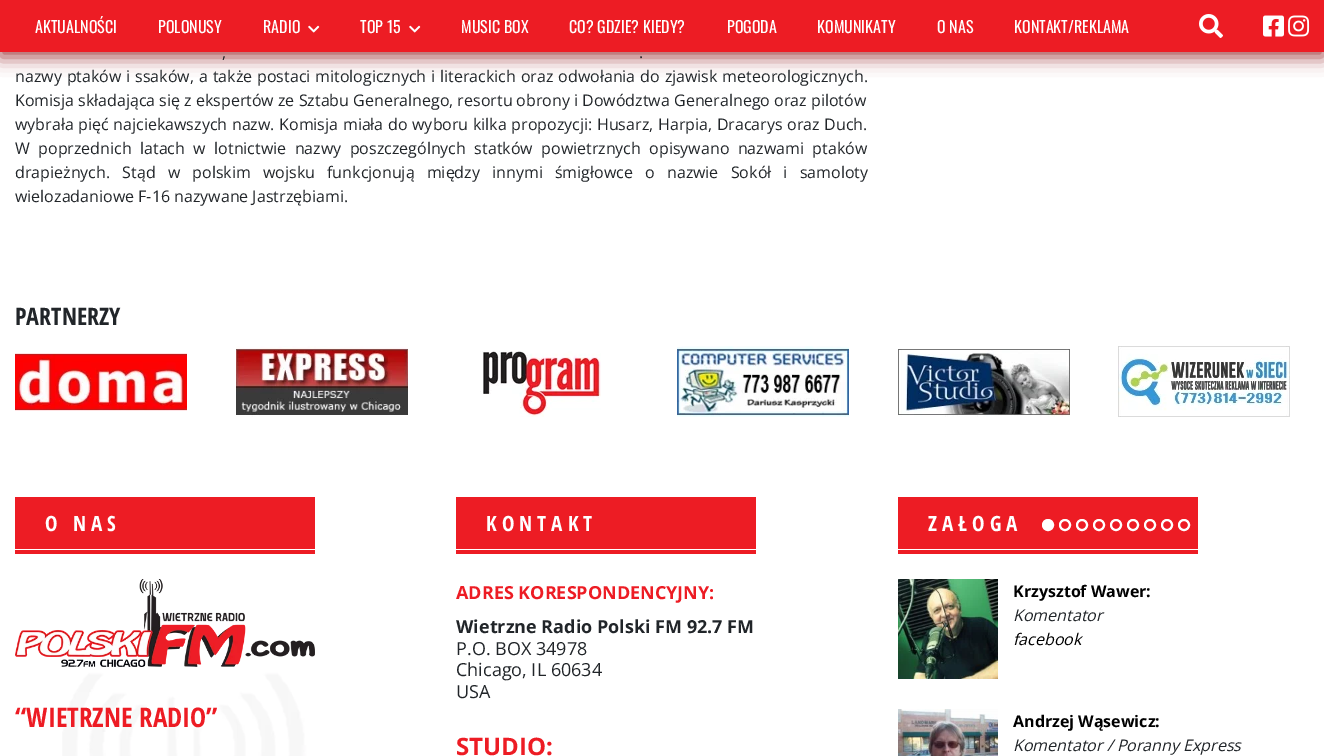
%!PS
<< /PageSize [1324 756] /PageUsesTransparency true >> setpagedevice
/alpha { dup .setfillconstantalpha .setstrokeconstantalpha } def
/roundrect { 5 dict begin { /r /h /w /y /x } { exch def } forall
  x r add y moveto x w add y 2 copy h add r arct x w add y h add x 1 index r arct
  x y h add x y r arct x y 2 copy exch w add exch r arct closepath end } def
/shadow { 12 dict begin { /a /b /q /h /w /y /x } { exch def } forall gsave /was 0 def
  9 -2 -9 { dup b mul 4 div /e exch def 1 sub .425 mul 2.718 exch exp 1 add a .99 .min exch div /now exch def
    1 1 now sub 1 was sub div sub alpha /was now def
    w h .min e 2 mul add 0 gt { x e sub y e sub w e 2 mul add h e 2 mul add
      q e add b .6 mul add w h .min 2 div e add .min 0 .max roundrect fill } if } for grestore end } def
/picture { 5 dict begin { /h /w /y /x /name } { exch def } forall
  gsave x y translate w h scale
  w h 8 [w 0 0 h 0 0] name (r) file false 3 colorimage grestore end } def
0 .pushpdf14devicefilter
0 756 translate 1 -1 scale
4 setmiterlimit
1 setgray
0 0 1324 756 rectfill
(img1.rgb) 62 52 791 704 picture
0.557 0.086 0.106 setrgbcolor
0 5 1324 52 0 9 0.8 shadow
0.929 0.11 0.141 setrgbcolor
0 0 1324 52 rectfill
/Oswald-Regular [16 0 0 -16 0 0] selectfont
1 setgray
35 33 moveto (AKTUALNOŚCI) show
158 33 moveto (POLONUSY) show
263 33 moveto (RADIO) show
(img2.rgb) 308 25 12 8 picture
360 33 moveto (TOP 15) show
(img2.rgb) 409 25 12 8 picture
461 33 moveto (MUSIC BOX) show
569 33 moveto (CO? GDZIE? KIEDY?) show
727 33 moveto (POGODA) show
817 33 moveto (KOMUNIKATY) show
937 33 moveto (O NAS) show
1014 33 moveto (KONTAKT/REKLAMA) show
(img3.rgb) 1199 14 24 24 picture
(img4.rgb) 1263 15 21 22 picture
(img5.rgb) 1288 15 22 22 picture
/OpenSans-Regular [16 0 0 -16 0 0] selectfont
0.129 0.145 0.161 setrgbcolor
222 58 moveto 1 0 32 (,) widthshow
639 58 moveto 1 0 32 (.) widthshow
15 82 moveto 0.75 0 32 (nazwy ptaków i ssaków, a także postaci mitologicznych i literackich oraz odwołania do zjawisk meteorologicznych.) widthshow
15 106 moveto (Komisja składająca się z ekspertów ze Sztabu Generalnego, resortu obrony i Dowództwa Generalnego oraz pilotów) show
15 130 moveto 0.5 0 32 (wybrała pięć najciekawszych nazw. Komisja miała do wyboru kilka propozycji: Husarz, Harpia, Dracarys oraz Duch.) widthshow
15 154 moveto 4.25 0 32 (W poprzednich latach w lotnictwie nazwy poszczególnych statków powietrznych opisywano nazwami ptaków) widthshow
15 178 moveto 8.1 0 32 (drapieżnych. Stąd w polskim wojsku funkcjonują między innymi śmigłowce o nazwie Sokół i samoloty) widthshow
15 202 moveto (wielozadaniowe F-16 nazywane Jastrzębiami.) show
/OpenSansCondensed-Bold [24 0 0 -24 0 0] selectfont
15 325 moveto (PARTNERZY) show
(img6.rgb) 15 353 172 58 picture
(img7.rgb) 236 346 172 71 picture
(img8.rgb) 480 351 121 66 picture
(img9.rgb) 677 346 172 71 picture
(img10.rgb) 898 349 172 68 picture
(img11.rgb) 1118 346 172 71 picture
0.929 0.11 0.141 setrgbcolor
15 497 300 52 rectfill
/OpenSansCondensed-Bold [21 0 0 -21 0 0] selectfont
1 setgray
45 531 moveto 5 0 (O NAS) ashow
0.929 0.11 0.141 setrgbcolor
15 550 300 4 rectfill
(img12.rgb) 15 579 300 88 picture
/OpenSansCondensed-Bold [27 0 0 -27 0 0] selectfont
15 727 moveto (“WIETRZNE RADIO”) show
456 497 300 52 rectfill
/OpenSansCondensed-Bold [21 0 0 -21 0 0] selectfont
1 setgray
486 531 moveto 5 0 (KONTAKT) ashow
0.929 0.11 0.141 setrgbcolor
456 550 300 4 rectfill
/OpenSans-Bold [18 0 0 -18 0 0] selectfont
456 599 moveto (ADRES KORESPONDENCYJNY:) show
0.129 0.145 0.161 setrgbcolor
456 633 moveto (Wietrzne Radio Polski FM 92.7 FM) show
/OpenSans-Regular [18 0 0 -18 0 0] selectfont
456 655 moveto (P.O. BOX 34978) show
456 676 moveto (Chicago, IL 60634) show
456 698 moveto (USA) show
/OpenSans-Bold [24 0 0 -24 0 0] selectfont
0.929 0.11 0.141 setrgbcolor
456 755 moveto (STUDIO:) show
898 497 300 52 rectfill
/OpenSansCondensed-Bold [21 0 0 -21 0 0] selectfont
1 setgray
928 531 moveto 5 0 (ZAŁOGA) ashow
newpath 1048 525 5 0 360 arc closepath gsave fill grestore
2 setlinewidth
stroke
newpath 1065 525 5 0 360 arc closepath stroke
newpath 1082 525 5 0 360 arc closepath stroke
newpath 1099 525 5 0 360 arc closepath stroke
newpath 1116 525 5 0 360 arc closepath stroke
newpath 1133 525 5 0 360 arc closepath stroke
newpath 1150 525 5 0 360 arc closepath stroke
newpath 1167 525 5 0 360 arc closepath stroke
newpath 1184 525 5 0 360 arc closepath stroke
0.929 0.11 0.141 setrgbcolor
898 550 300 4 rectfill
(img13.rgb) 898 579 100 100 picture
/OpenSans-Bold [16 0 0 -16 0 0] selectfont
0 setgray
1013 597 moveto (Krzysztof Wawer:) show
/OpenSans-Italic [16 0 0 -16 0 0] selectfont
0.129 0.145 0.161 setrgbcolor
1013 621 moveto (Komentator) show
0 setgray
1013 645 moveto (facebook) show
(img14.rgb) 898 709 100 47 picture
/OpenSans-Bold [16 0 0 -16 0 0] selectfont
1013 727 moveto (Andrzej Wąsewicz:) show
/OpenSans-Italic [16 0 0 -16 0 0] selectfont
0.129 0.145 0.161 setrgbcolor
1013 751 moveto (Komentator / Poranny Express) show
.poppdf14devicefilter showpage
